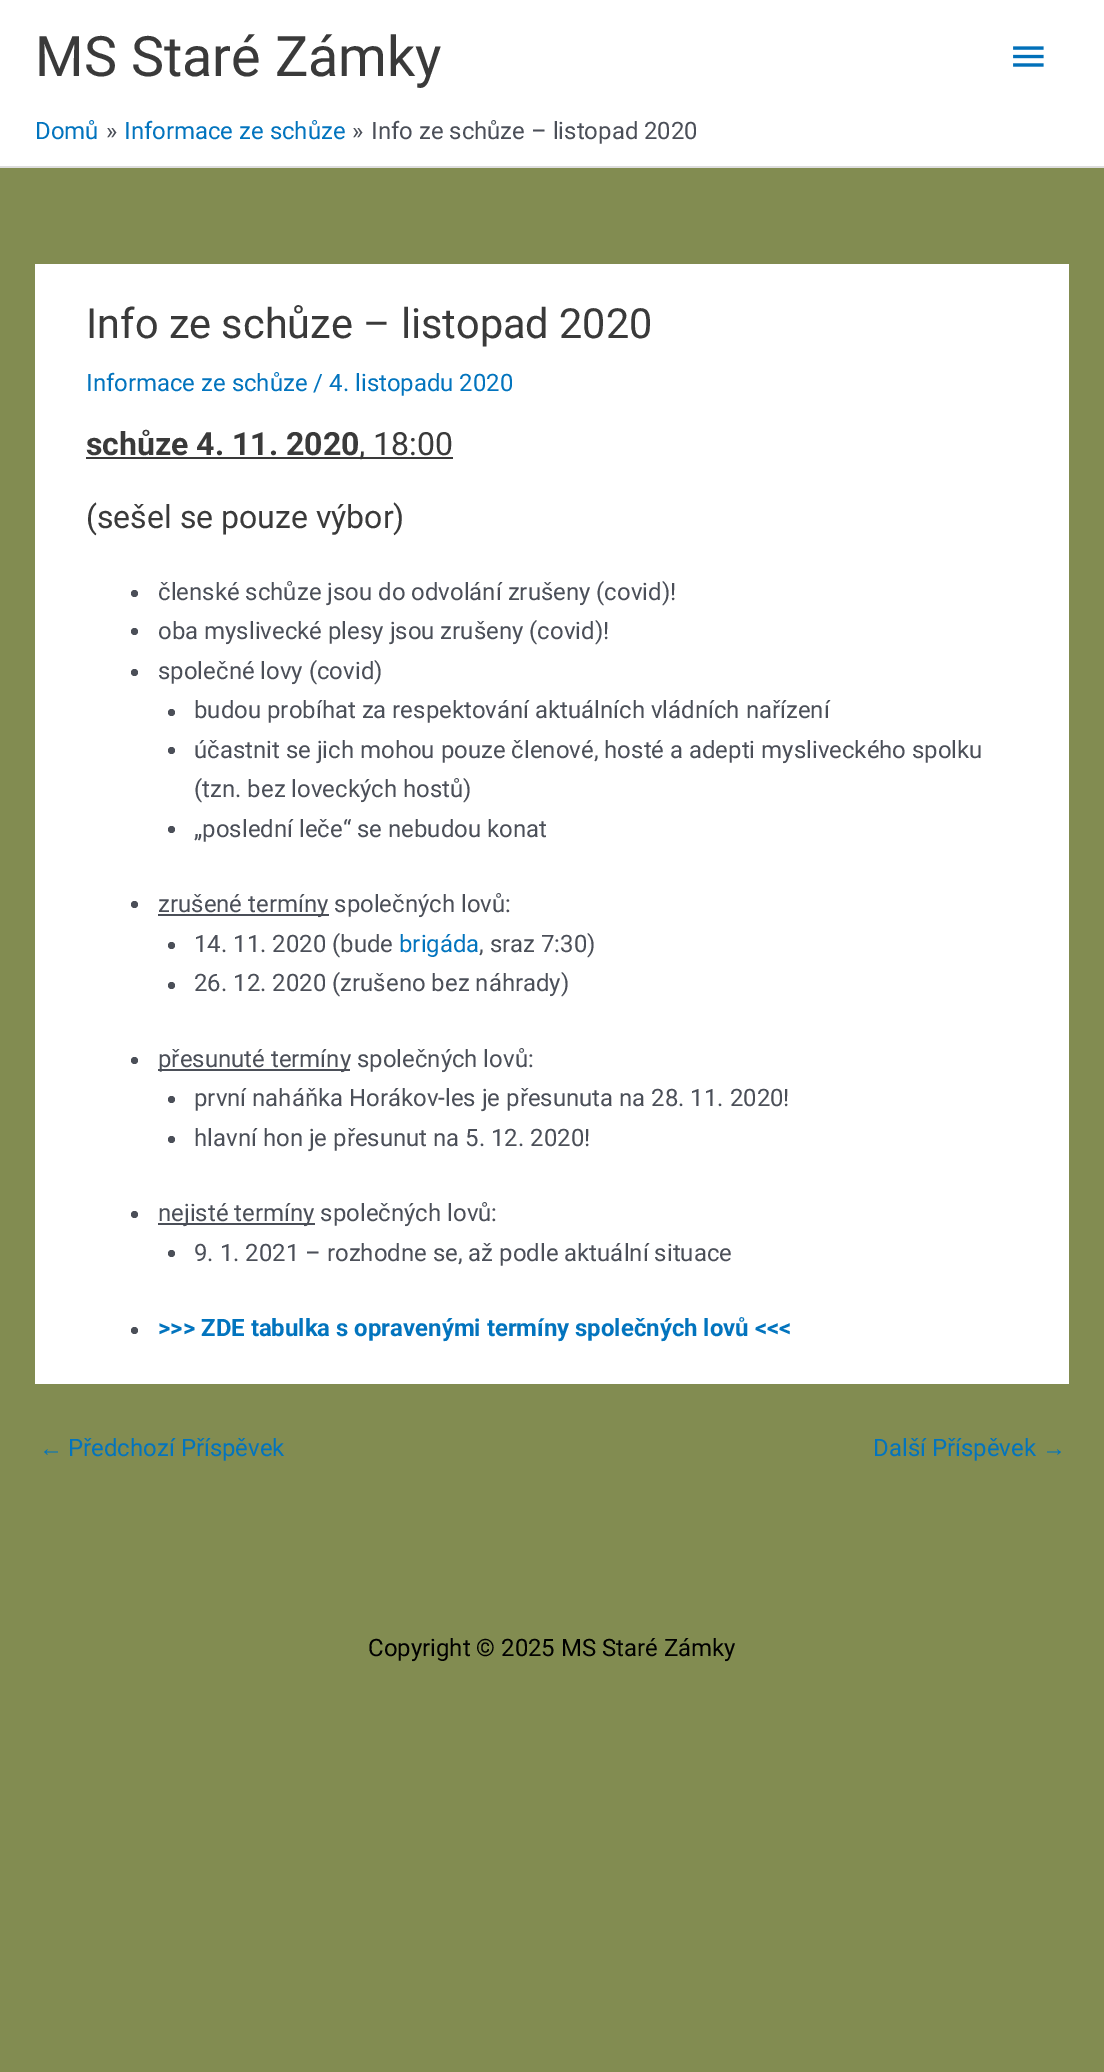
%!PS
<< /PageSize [1104 2072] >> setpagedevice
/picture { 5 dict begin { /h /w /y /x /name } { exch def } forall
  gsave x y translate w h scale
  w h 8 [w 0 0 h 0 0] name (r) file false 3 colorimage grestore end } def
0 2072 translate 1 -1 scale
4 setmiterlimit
0.51 0.549 0.318 setrgbcolor
0 0 1104 2072 rectfill
1 setgray
0 0 1104 166 rectfill
0.867 setgray
0 166 1104 2 rectfill
/Roboto-Regular [55.75 0 0 -55.75 0 0] selectfont
0.227 setgray
35 76 moveto (MS Staré Zámky) show
(img1.rgb) 1013 46 31 21 picture
/Roboto-Regular [23.95 0 0 -23.95 0 0] selectfont
0.008 0.455 0.745 setrgbcolor
35 139 moveto (Domů) show
0.294 0.31 0.345 setrgbcolor
106 139 moveto (») show
0.008 0.455 0.745 setrgbcolor
124 139 moveto (Informace ze schůze) show
0.294 0.31 0.345 setrgbcolor
352 139 moveto (») show
371 139 moveto (Info ze schůze – listopad 2020) show
1 setgray
35 264 1034 1120 rectfill
/Roboto-Regular [41.5 0 0 -41.5 0 0] selectfont
0.227 setgray
86 338 moveto (Info ze schůze – listopad 2020) show
/Roboto-Regular [23.95 0 0 -23.95 0 0] selectfont
0.008 0.455 0.745 setrgbcolor
86 391 moveto (Informace ze schůze / 4. listopadu 2020) show
/Roboto-Bold [32 0 0 -32 0 0] selectfont
0.227 setgray
86 455 moveto (schůze 4. 11. 2020) show
86 457 367 2 rectfill
/Roboto-Regular [32 0 0 -32 0 0] selectfont
359 455 moveto (, 18:00) show
86 528 moveto (\(sešel se pouze výbor\)) show
0.294 0.31 0.345 setrgbcolor
newpath 134.5 593.5 3.5 0 360 arc closepath fill
/Roboto-Regular [23.95 0 0 -23.95 0 0] selectfont
158 600 moveto (členské schůze jsou do odvolání zrušeny \(covid\)!) show
newpath 134.5 631.5 3.5 0 360 arc closepath fill
158 639 moveto (oba myslivecké plesy jsou zrušeny \(covid\)!) show
newpath 134.5 672.5 3.5 0 360 arc closepath fill
158 679 moveto (společné lovy \(covid\)) show
newpath 171.5 712.5 3.5 0 360 arc closepath fill
194 718 moveto (budou probíhat za respektování aktuálních vládních nařízení) show
newpath 171.5 750.5 3.5 0 360 arc closepath fill
194 758 moveto (účastnit se jich mohou pouze členové, hosté a adepti mysliveckého spolku) show
194 797 moveto (\(tzn. bez loveckých hostů\)) show
newpath 171.5 829.5 3.5 0 360 arc closepath fill
194 837 moveto („poslední leče“ se nebudou konat) show
newpath 134.5 904.5 3.5 0 360 arc closepath fill
158 914 171 2 rectfill
158 912 moveto (zrušené termíny společných lovů:) show
newpath 171.5 945.5 3.5 0 360 arc closepath fill
194 952 moveto (14. 11. 2020 \(bude) show
0.008 0.455 0.745 setrgbcolor
399 952 moveto (brigáda) show
0.294 0.31 0.345 setrgbcolor
479 952 moveto (, sraz 7:30\)) show
newpath 171.5 985.5 3.5 0 360 arc closepath fill
194 991 moveto (26. 12. 2020 \(zrušeno bez náhrady\)) show
newpath 134.5 1060.5 3.5 0 360 arc closepath fill
158 1069 192 2 rectfill
158 1067 moveto (přesunuté termíny společných lovů:) show
newpath 171.5 1099.5 3.5 0 360 arc closepath fill
194 1106 moveto (první naháňka Horákov-les je přesunuta na 28. 11. 2020!) show
newpath 171.5 1139.5 3.5 0 360 arc closepath fill
194 1146 moveto (hlavní hon je přesunut na 5. 12. 2020!) show
newpath 134.5 1214.5 3.5 0 360 arc closepath fill
158 1223 157 2 rectfill
158 1221 moveto (nejisté termíny společných lovů:) show
newpath 171.5 1253.5 3.5 0 360 arc closepath fill
194 1261 moveto (9. 1. 2021 – rozhodne se, až podle aktuální situace) show
newpath 134.5 1330.5 3.5 0 360 arc closepath fill
/Roboto-Bold [23.95 0 0 -23.95 0 0] selectfont
0.008 0.455 0.745 setrgbcolor
158 1336 moveto (>>> ZDE tabulka s opravenými termíny společných lovů <<<) show
/LiberationSans-Regular [23.95 0 0 -23.95 0 0] selectfont
39 1456 moveto (←) show
/Roboto-Regular [23.95 0 0 -23.95 0 0] selectfont
68 1456 moveto (Předchozí Příspěvek) show
873 1456 moveto (Další Příspěvek) show
/LiberationSans-Regular [23.95 0 0 -23.95 0 0] selectfont
1042 1456 moveto (→) show
/Roboto-Regular [23.95 0 0 -23.95 0 0] selectfont
0 setgray
368 1656 moveto (Copyright © 2025 MS Staré Zámky) show
showpage
